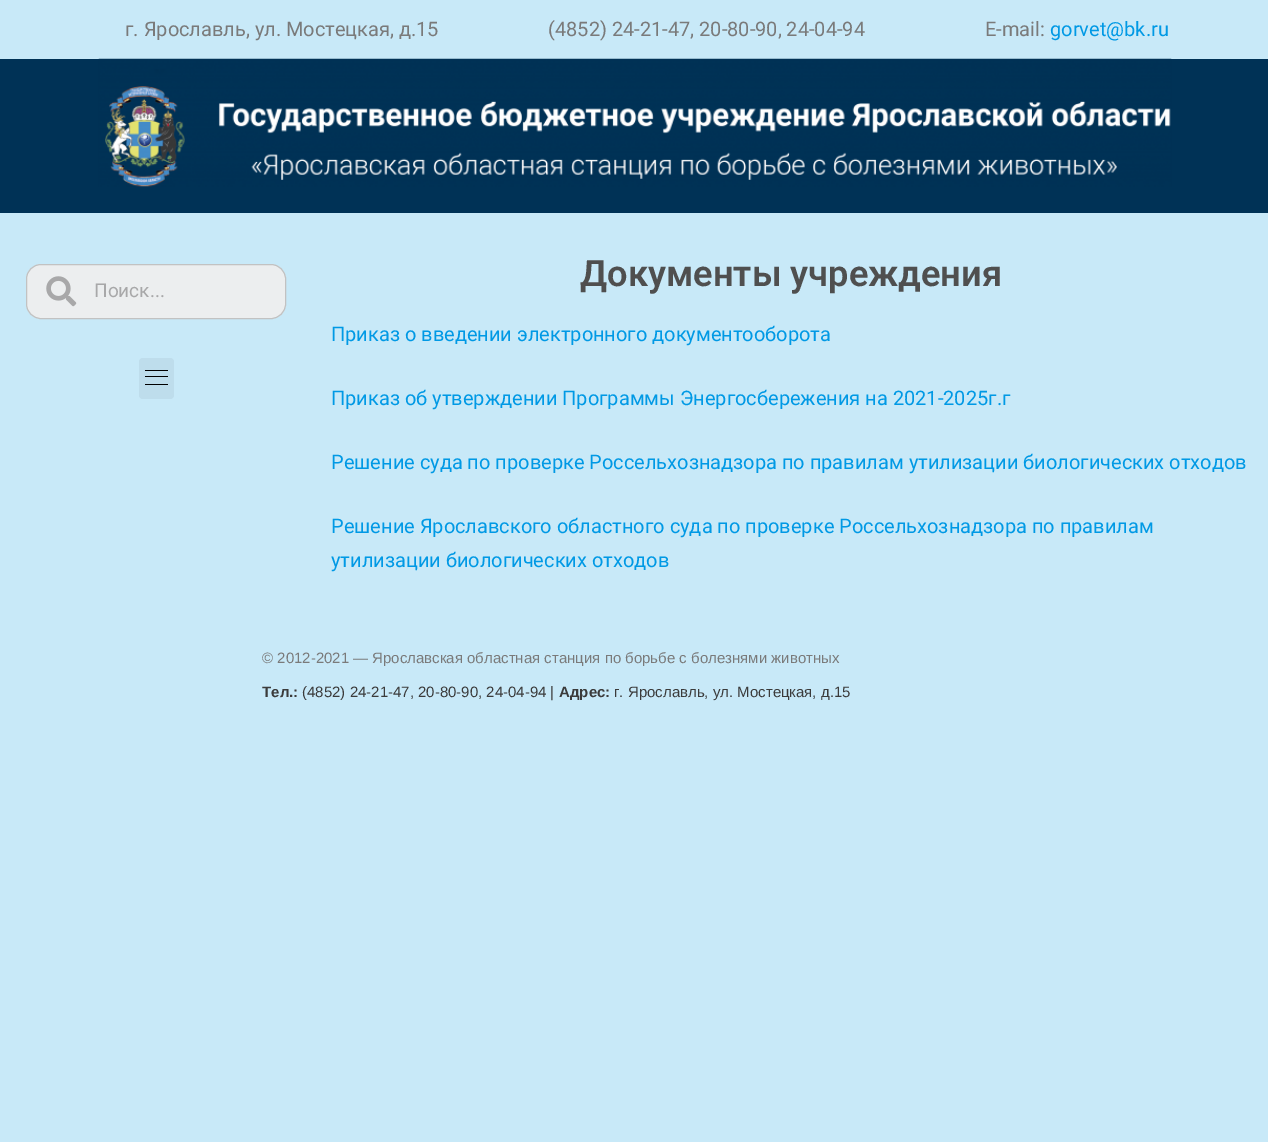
%!PS
<< /PageSize [1268 1142] >> setpagedevice
/roundrect { 5 dict begin { /r /h /w /y /x } { exch def } forall
  x r add y moveto x w add y 2 copy h add r arct x w add y h add x 1 index r arct
  x y h add x y r arct x y 2 copy exch w add exch r arct closepath end } def
/picture { 5 dict begin { /h /w /y /x /name } { exch def } forall
  gsave x y translate w h scale
  w h 8 [w 0 0 h 0 0] name (r) file false 3 colorimage grestore end } def
0 1142 translate 1 -1 scale
4 setmiterlimit
0.784 0.914 0.973 setrgbcolor
0 0 1268 1142 rectfill
/Roboto-Regular [20 0 0 -20 0 0] selectfont
0.478 setgray
125 36 moveto (г. Ярославль, ул. Мостецкая, д.15) show
548 36 moveto (\(4852\) 24-21-47, 20-80-90, 24-04-94) show
985 36 moveto (E-mail:) show
0 0.6 0.898 setrgbcolor
1050 36 moveto (gorvet@bk.ru) show
0 0.196 0.337 setrgbcolor
0 59 1268 154 rectfill
(img1.rgb) 98 58 1074 129 picture
0.925 0.933 0.937 setrgbcolor
26.5 264.5 259 54 14.5 roundrect gsave fill grestore
0.761 setgray
stroke
(img2.rgb) 46 276 31 31 picture
/Roboto-Regular [19 0 0 -19 0 0] selectfont
0.659 0.659 0.663 setrgbcolor
94 297 moveto (Поиск...) show
0.745 0.867 0.925 setrgbcolor
139 358 35 41 4 roundrect fill
0 setgray
145 370 23 1 rectfill
145 376 23 1 rectfill
145 384 23 1 rectfill
/Roboto-SemiBold [36.25 0 0 -36.25 0 0] selectfont
0.31 setgray
580 286 moveto (Документы учреждения) show
/Roboto-Regular [20 0 0 -20 0 0] selectfont
0 0.6 0.898 setrgbcolor
331 341 moveto (Приказ о введении электронного документооборота) show
331 405 moveto (Приказ об утверждении Программы Энергосбережения на 2021-2025г.г) show
331 469 moveto (Решение суда по проверке Россельхознадзора по правилам утилизации биологических отходов) show
331 533 moveto (Решение Ярославского областного суда по проверке Россельхознадзора по правилам) show
331 567 moveto (утилизации биологических отходов) show
/LiberationSans-Regular [15 0 0 -15 0 0] selectfont
0.478 setgray
262 663 moveto (© 2012-2021 — Ярославская областная станция по борьбе с болезнями животных) show
/LiberationSans-Bold [15 0 0 -15 0 0] selectfont
0.231 setgray
262 697 moveto (Тел.:) show
/LiberationSans-Regular [15 0 0 -15 0 0] selectfont
302 697 moveto (\(4852\) 24-21-47, 20-80-90, 24-04-94 |) show
/LiberationSans-Bold [15 0 0 -15 0 0] selectfont
559 697 moveto (Адрес:) show
/LiberationSans-Regular [15 0 0 -15 0 0] selectfont
614 697 moveto (г. Ярославль, ул. Мостецкая, д.15) show
showpage
